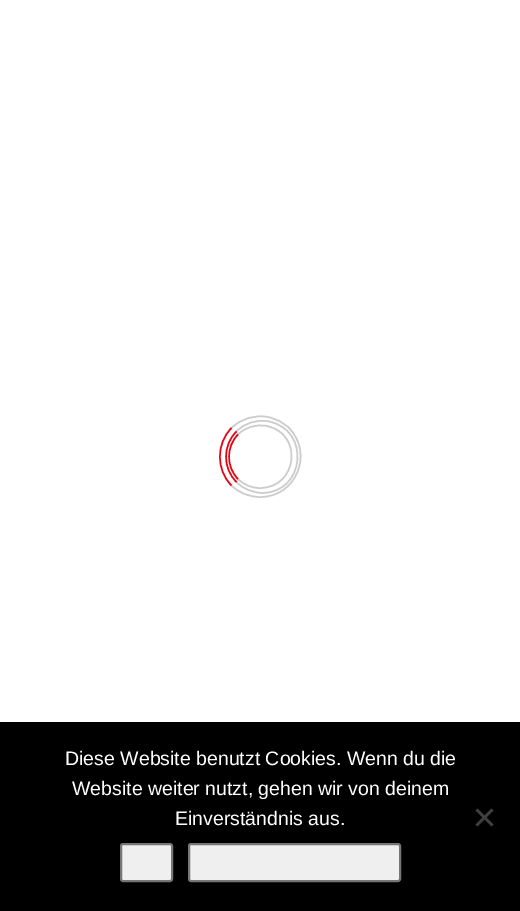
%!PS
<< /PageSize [520 911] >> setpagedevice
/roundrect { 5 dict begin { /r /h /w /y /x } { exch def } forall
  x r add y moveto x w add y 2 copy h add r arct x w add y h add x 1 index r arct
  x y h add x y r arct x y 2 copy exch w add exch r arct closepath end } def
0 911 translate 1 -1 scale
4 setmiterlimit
1 setgray
0 0 520 911 rectfill
0.8 setgray
1.5 setlinewidth
newpath 236.5 431.5 moveto 244.5 423 257 419 269 421.5 curveto 311 430 305 493 262 493 curveto 252.5 492.5 243 489 236.5 482 curveto stroke
0.89 0.024 0.075 setrgbcolor
newpath 236.5 482 moveto 222.5 468.5 222.5 445 236.5 431.5 curveto stroke
0.8 setgray
newpath 238 434.5 moveto 245.5 427 256 424 266.5 426 curveto 303.5 433 298 488 260 488 curveto 252 488 244 485 238 479 curveto stroke
0.89 0.024 0.075 setrgbcolor
newpath 238 479 moveto 226 467 226 446.5 238 434.5 curveto stroke
0.8 setgray
newpath 231.5 428 moveto 241 418.5 255 414.5 268 417 curveto 276 418.5 283.5 422.5 289 428 curveto 314 453.5 296 497.5 260 497 curveto 249.5 497 239 493 231.5 485.5 curveto stroke
0.89 0.024 0.075 setrgbcolor
newpath 231.5 485.5 moveto 216 470 216 443.5 231.5 428 curveto stroke
0 setgray
0 722 520 189 rectfill
/LiberationSans-Regular [19.5 0 0 -19.5 0 0] selectfont
1 setgray
65 765 moveto (Diese Website benutzt Cookies. Wenn du die) show
72 795 moveto (Website weiter nutzt, gehen wir von deinem) show
175 825 moveto (Einverständnis aus.) show
0.251 setgray
newpath 491.5 808.5 moveto 493.5 810.5 lineto 477.5 826.5 lineto 475.5 824.5 lineto closepath fill
newpath 475.5 810.5 moveto 477.5 808.5 lineto 493.5 824.5 lineto 491.5 826.5 lineto closepath fill
0.937 setgray
121 844 51 37 2 roundrect gsave fill grestore
0.463 setgray
2 setlinewidth
stroke
0.937 setgray
189 844 211 37 2 roundrect gsave fill grestore
0.463 setgray
stroke
showpage
